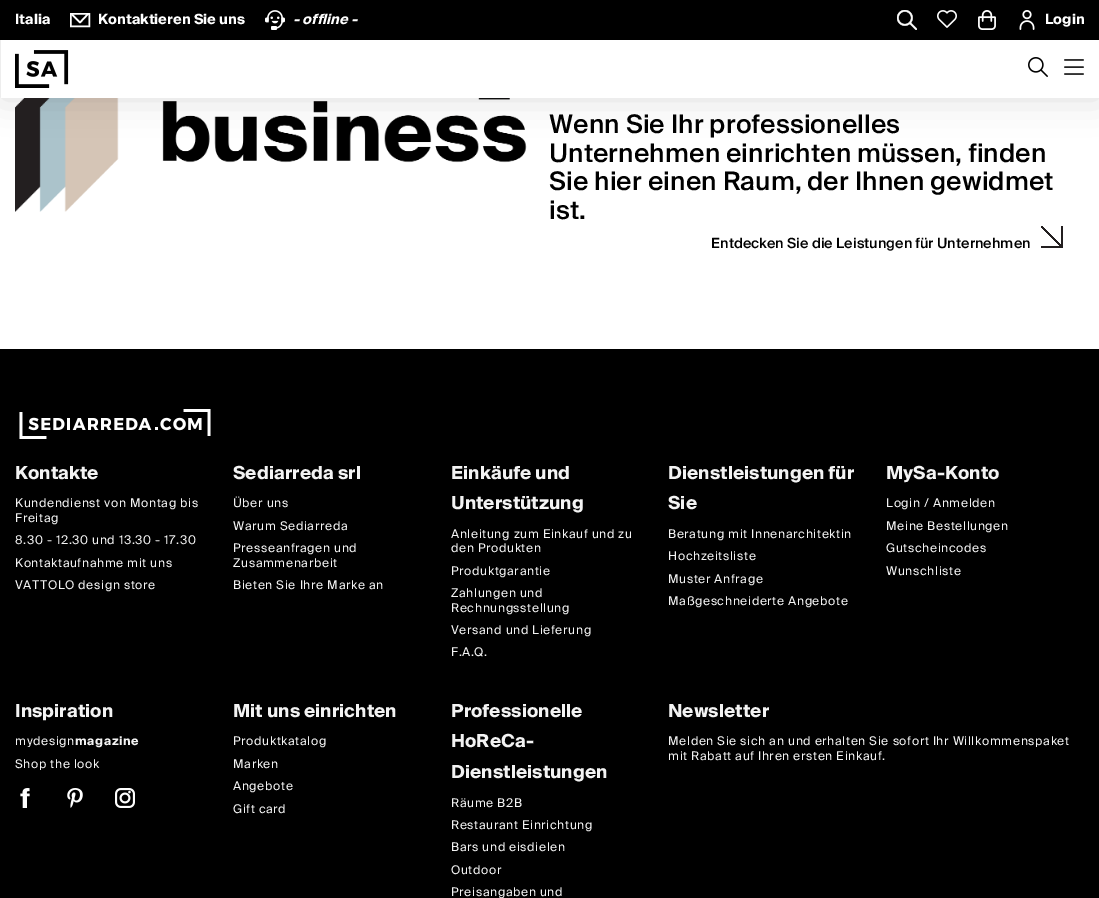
%!PS
<< /PageSize [1099 898] /PageUsesTransparency true >> setpagedevice
/alpha { dup .setfillconstantalpha .setstrokeconstantalpha } def
/roundrect { 5 dict begin { /r /h /w /y /x } { exch def } forall
  x r add y moveto x w add y 2 copy h add r arct x w add y h add x 1 index r arct
  x y h add x y r arct x y 2 copy exch w add exch r arct closepath end } def
/shadow { 12 dict begin { /a /b /q /h /w /y /x } { exch def } forall gsave /was 0 def
  9 -2 -9 { dup b mul 4 div /e exch def 1 sub .425 mul 2.718 exch exp 1 add a .99 .min exch div /now exch def
    1 1 now sub 1 was sub div sub alpha /was now def
    w h .min e 2 mul add 0 gt { x e sub y e sub w e 2 mul add h e 2 mul add
      q e add b .6 mul add w h .min 2 div e add .min 0 .max roundrect fill } if } for grestore end } def
/picture { 5 dict begin { /h /w /y /x /name } { exch def } forall
  gsave x y translate w h scale
  w h 8 [w 0 0 h 0 0] name (r) file false 3 colorimage grestore end } def
0 .pushpdf14devicefilter
0 898 translate 1 -1 scale
4 setmiterlimit
1 setgray
0 0 1099 898 rectfill
(img9.rgb) 15 98 512 114 picture
gsave
newpath 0 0 moveto 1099 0 lineto 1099 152 lineto 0 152 lineto closepath 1 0 moveto 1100 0 lineto 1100 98 lineto 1 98 lineto closepath eoclip newpath
0.137 0.122 0.125 setrgbcolor
1 0 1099 98 0 17.5 0.15 shadow
grestore
0 setgray
0 0 1099 40 rectfill
/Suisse-Bold [14 0 0 -14 0 0] selectfont
1 setgray
15 24 moveto (Italia) show
1.5 setlinewidth
70.75 13.75 18.5 12.5 rectstroke
1.6 setlinewidth
1 setlinecap
1 setlinejoin
newpath 72 14.5 moveto 80 22.5 lineto 88 14 lineto stroke
98 24 moveto (Kontaktieren Sie uns) show
(img1.rgb) 265 10 20 20 picture
/Suisse-BoldItalic [14 0 0 -14 0 0] selectfont
293 24 moveto (- offline -) show
(img2.rgb) 897 10 20 20 picture
(img3.rgb) 937 10 20 18 picture
(img4.rgb) 978 10 18 20 picture
(img5.rgb) 1019 10 16 20 picture
/Suisse-Bold [14 0 0 -14 0 0] selectfont
1045 24 moveto (Login) show
(img6.rgb) 15 50 54 38 picture
(img7.rgb) 1028 57 20 20 picture
(img8.rgb) 1064 59 20 16 picture
/Suisse-Medium [25.6 0 0 -25.6 0 0] selectfont
0 setgray
549 133 moveto (Wenn Sie Ihr professionelles) show
549 162 moveto (Unternehmen einrichten müssen, finden) show
549 190 moveto (Sie hier einen Raum, der Ihnen gewidmet) show
549 219 moveto (ist.) show
/Suisse-Medium [14 0 0 -14 0 0] selectfont
711 248 moveto (Entdecken Sie die Leistungen für Unternehmen) show
gsave newpath 1041 226 moveto 1061 226 lineto 1061 246 lineto 1041 246 lineto closepath clip newpath
<< /ShadingType 2 /ColorSpace /DeviceRGB /Coords [1041 246 1061 226] /Extend [true true] /Function << /FunctionType 3 /Domain [0 1] /Functions [<< /FunctionType 2 /Domain [0 1] /C0 [1 1 1] /C1 [1 1 1] /N 1 >> << /FunctionType 2 /Domain [0 1] /C0 [0.137 0.122 0.125] /C1 [0.137 0.122 0.125] /N 1 >> << /FunctionType 2 /Domain [0 1] /C0 [1 1 1] /C1 [1 1 1] /N 1 >>] /Bounds [0.45 0.55] /Encode [0 1 0 1 0 1] >> >> shfill grestore
0.137 0.122 0.125 setrgbcolor
1061 226 2 22 rectfill
1041 246 22 2 rectfill
0 setgray
0 349 1099 549 rectfill
(img10.rgb) 19 409 192 30 picture
/Suisse-Bold [18 0 0 -18 0 0] selectfont
0.953 setgray
15 479 moveto (Kontakte) show
/Suisse-Regular [12 0 0 -12 0 0] selectfont
15 507 moveto 0.6 0 (Kundendienst von Montag bis) ashow
15 522 moveto 0.6 0 (Freitag) ashow
15 544 moveto 0.6 0 (8.30 - 12.30 und 13.30 - 17.30) ashow
15 567 moveto 0.6 0 (Kontaktaufnahme mit uns) ashow
15 589 moveto 0.6 0 (VATTOLO design store) ashow
/Suisse-Bold [18 0 0 -18 0 0] selectfont
233 479 moveto (Sediarreda srl) show
/Suisse-Regular [12 0 0 -12 0 0] selectfont
233 507 moveto 0.6 0 (Über uns) ashow
233 530 moveto 0.6 0 (Warum Sediarreda) ashow
233 552 moveto 0.6 0 (Presseanfragen und) ashow
233 567 moveto 0.6 0 (Zusammenarbeit) ashow
233 589 moveto 0.6 0 (Bieten Sie Ihre Marke an) ashow
/Suisse-Bold [18 0 0 -18 0 0] selectfont
451 479 moveto (Einkäufe und) show
451 509 moveto (Unterstützung) show
/Suisse-Regular [12 0 0 -12 0 0] selectfont
451 538 moveto 0.6 0 (Anleitung zum Einkauf und zu) ashow
451 552 moveto 0.6 0 (den Produkten) ashow
451 575 moveto 0.6 0 (Produktgarantie) ashow
451 597 moveto 0.6 0 (Zahlungen und) ashow
451 612 moveto 0.6 0 (Rechnungsstellung) ashow
451 634 moveto 0.6 0 (Versand und Lieferung) ashow
451 656 moveto 0.6 0 (F.A.Q.) ashow
/Suisse-Bold [18 0 0 -18 0 0] selectfont
668 479 moveto (Dienstleistungen für) show
668 509 moveto (Sie) show
/Suisse-Regular [12 0 0 -12 0 0] selectfont
668 538 moveto 0.6 0 (Beratung mit Innenarchitektin) ashow
668 560 moveto 0.6 0 (Hochzeitsliste) ashow
668 583 moveto 0.6 0 (Muster Anfrage) ashow
668 605 moveto 0.6 0 (Maßgeschneiderte Angebote) ashow
/Suisse-Bold [18 0 0 -18 0 0] selectfont
886 479 moveto (MySa-Konto) show
/Suisse-Regular [12 0 0 -12 0 0] selectfont
886 507 moveto 0.6 0 (Login / Anmelden) ashow
886 530 moveto 0.6 0 (Meine Bestellungen) ashow
886 552 moveto 0.6 0 (Gutscheincodes) ashow
886 575 moveto 0.6 0 (Wunschliste) ashow
/Suisse-Bold [18 0 0 -18 0 0] selectfont
15 717 moveto (Inspiration) show
/Suisse-Regular [12 0 0 -12 0 0] selectfont
15 745 moveto 0.6 0 (mydesign) ashow
/Suisse-Bold [12 0 0 -12 0 0] selectfont
75 745 moveto 0.6 0 (magazine) ashow
/Suisse-Regular [12 0 0 -12 0 0] selectfont
15 768 moveto 0.6 0 (Shop the look) ashow
(img11.rgb) 20 788 10 20 picture
(img12.rgb) 67 788 16 20 picture
(img13.rgb) 115 788 20 20 picture
/Suisse-Bold [18 0 0 -18 0 0] selectfont
233 717 moveto (Mit uns einrichten) show
/Suisse-Regular [12 0 0 -12 0 0] selectfont
233 745 moveto 0.6 0 (Produktkatalog) ashow
233 768 moveto 0.6 0 (Marken) ashow
233 790 moveto 0.6 0 (Angebote) ashow
233 813 moveto 0.6 0 (Gift card) ashow
/Suisse-Bold [18 0 0 -18 0 0] selectfont
451 717 moveto (Professionelle) show
451 747 moveto (HoReCa-) show
451 778 moveto (Dienstleistungen) show
/Suisse-Regular [12 0 0 -12 0 0] selectfont
451 807 moveto 0.6 0 (Räume B2B) ashow
451 829 moveto 0.6 0 (Restaurant Einrichtung) ashow
451 851 moveto 0.6 0 (Bars und eisdielen) ashow
451 874 moveto 0.6 0 (Outdoor) ashow
451 896 moveto 0.6 0 (Preisangaben und) ashow
/Suisse-Bold [18 0 0 -18 0 0] selectfont
668 717 moveto (Newsletter) show
/Suisse-Regular [12 0 0 -12 0 0] selectfont
668 745 moveto 0.6 0 (Melden Sie sich an und erhalten Sie sofort Ihr Willkommenspaket) ashow
668 760 moveto 0.6 0 (mit Rabatt auf Ihren ersten Einkauf.) ashow
.poppdf14devicefilter showpage
